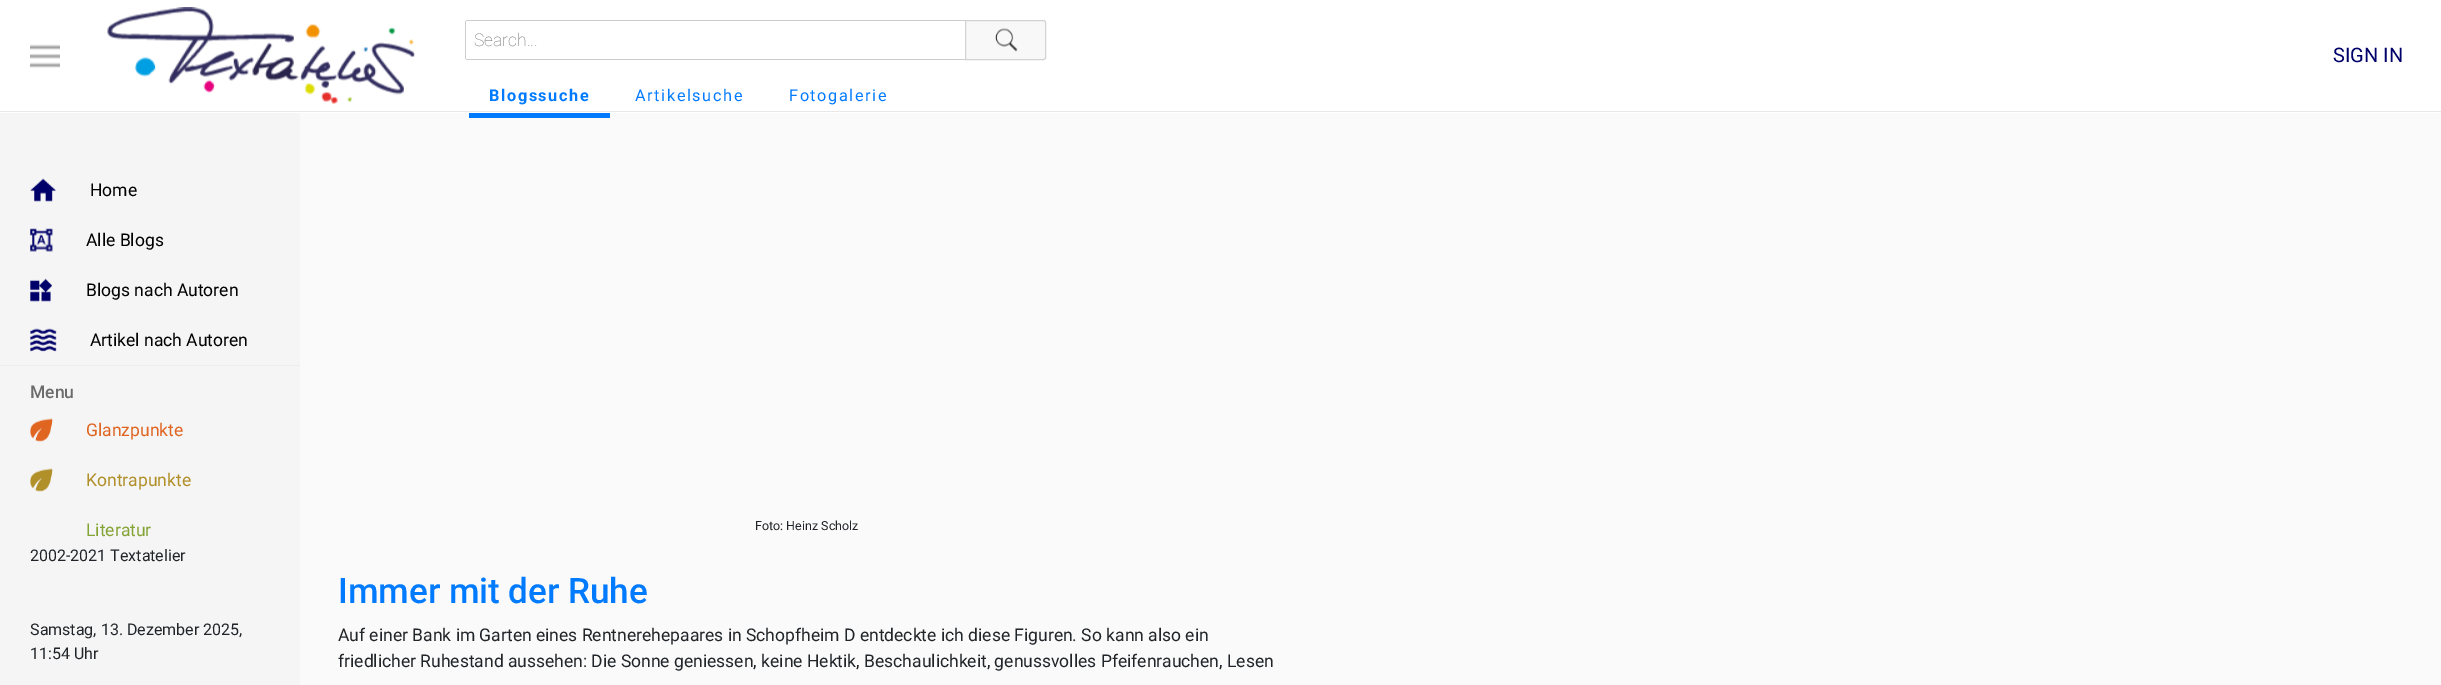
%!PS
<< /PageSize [2441 685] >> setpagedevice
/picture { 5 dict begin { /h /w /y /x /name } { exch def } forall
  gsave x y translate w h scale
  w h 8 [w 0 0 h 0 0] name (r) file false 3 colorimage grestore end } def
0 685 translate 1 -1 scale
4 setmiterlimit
0.98 setgray
0 0 2441 685 rectfill
1 setgray
0 0 2441 113 rectfill
0.91 setgray
0 111 2441 1 rectfill
(img1.rgb) 30 44 30 24 picture
(img2.rgb) 107 7 308 97 picture
0.8 setgray
466 20 499 1 rectfill
466 59 499 1 rectfill
465 21 1 38 rectfill
/Roboto-Thin [17.5 0 0 -17.5 0 0] selectfont
0.459 setgray
474 46 moveto (Search...) show
0.973 setgray
newpath 965.5 20.5 moveto 1043.5 20.5 lineto 1044.5 20.5 1045.5 21.5 1045.5 22.5 curveto 1045.5 57.5 lineto 1045.5 58.5 1044.5 59.5 1043.5 59.5 curveto 965.5 59.5 lineto closepath gsave fill grestore
0.827 setgray
stroke
(img3.rgb) 995 28 23 24 picture
0 0.482 1 setrgbcolor
469 113 141 5 rectfill
/Roboto-Bold [16.25 0 0 -16.25 0 0] selectfont
489 101 moveto 1.6 0 (Blogssuche) ashow
/Roboto-Regular [16.25 0 0 -16.25 0 0] selectfont
635 101 moveto 1.6 0 (Artikelsuche) ashow
789 101 moveto 1.6 0 (Fotogalerie) ashow
/Roboto-Regular [20 0 0 -20 0 0] selectfont
0 0 0.416 setrgbcolor
2333 62 moveto (SIGN IN) show
0.961 setgray
0 113 300 572 rectfill
(img4.rgb) 30 178 26 24 picture
/Roboto-Regular [17.5 0 0 -17.5 0 0] selectfont
0 setgray
90 196 moveto (Home) show
(img5.rgb) 30 228 23 24 picture
86 246 moveto (Alle Blogs) show
(img6.rgb) 30 278 22 24 picture
86 296 moveto (Blogs nach Autoren) show
(img7.rgb) 30 328 27 24 picture
90 346 moveto (Artikel nach Autoren) show
0.929 setgray
0 365 300 1 rectfill
/Roboto-Medium [17.5 0 0 -17.5 0 0] selectfont
0.424 setgray
30 398 moveto (Menu) show
(img8.rgb) 30 418 23 24 picture
/Roboto-Regular [17.5 0 0 -17.5 0 0] selectfont
0.875 0.396 0.129 setrgbcolor
86 436 moveto (Glanzpunkte) show
(img9.rgb) 30 468 23 24 picture
0.694 0.561 0.161 setrgbcolor
86 486 moveto (Kontrapunkte) show
0.522 0.643 0.212 setrgbcolor
86 536 moveto (Literatur) show
/Roboto-Regular [16 0 0 -16 0 0] selectfont
0.129 0.145 0.161 setrgbcolor
30 561 moveto (2002-2021 Textatelier) show
30 635 moveto (Samstag, 13. Dezember 2025,) show
30 659 moveto (11:54 Uhr) show
/Roboto-Regular [12.5 0 0 -12.5 0 0] selectfont
755 530 moveto (Foto: Heinz Scholz) show
/Roboto-Medium [35 0 0 -35 0 0] selectfont
0 0.482 1 setrgbcolor
338 603 moveto (Immer mit der Ruhe) show
/Roboto-Regular [17.5 0 0 -17.5 0 0] selectfont
0.129 0.145 0.161 setrgbcolor
338 641 moveto (Auf einer Bank im Garten eines Rentnerehepaares in Schopfheim D entdeckte ich diese Figuren. So kann also ein) show
338 667 moveto (friedlicher Ruhestand aussehen: Die Sonne geniessen, keine Hektik, Beschaulichkeit, genussvolles Pfeifenrauchen, Lesen) show
showpage
